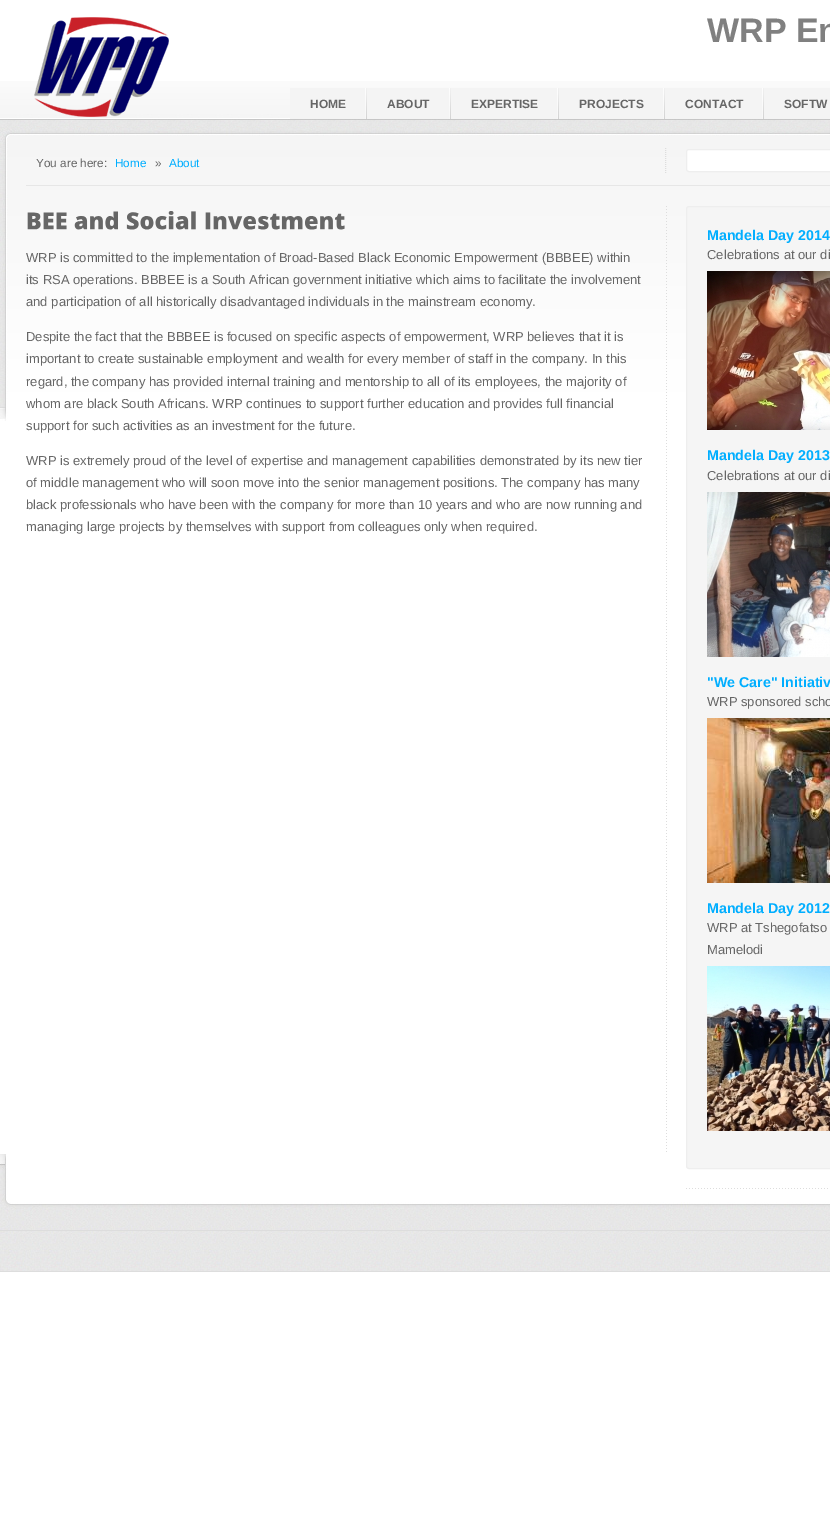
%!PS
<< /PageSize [830 1518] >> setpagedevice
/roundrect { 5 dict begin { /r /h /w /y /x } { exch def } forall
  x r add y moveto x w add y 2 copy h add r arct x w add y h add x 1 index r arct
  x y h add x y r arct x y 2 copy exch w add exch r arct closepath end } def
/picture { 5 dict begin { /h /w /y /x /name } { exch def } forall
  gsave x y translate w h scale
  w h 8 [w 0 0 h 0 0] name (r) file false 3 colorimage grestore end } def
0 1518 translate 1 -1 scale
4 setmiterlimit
1 setgray
0 0 830 1518 rectfill
(img1.rgb) 0 81 830 39 picture
(img2.rgb) 34 17 135 100 picture
/LiberationSans-Bold [34 0 0 -34 0 0] selectfont
0.502 setgray
707 42 moveto (WRP En) show
0.957 setgray
290 88 75 31 rectfill
(img3.rgb) 365 88 2 31 picture
/LiberationSans-Bold [12 0 0 -12 0 0] selectfont
0.4 setgray
310 108 moveto (HOME) show
0.957 setgray
367 88 82 31 rectfill
(img3.rgb) 449 88 2 31 picture
0.4 setgray
387 108 moveto (ABOUT) show
0.957 setgray
451 88 106 31 rectfill
(img3.rgb) 557 88 2 31 picture
0.4 setgray
471 108 moveto (EXPERTISE) show
0.957 setgray
559 88 104 31 rectfill
(img3.rgb) 663 88 2 31 picture
0.4 setgray
579 108 moveto (PROJECTS) show
0.957 setgray
665 88 97 31 rectfill
(img3.rgb) 762 88 2 31 picture
0.4 setgray
685 108 moveto (CONTACT) show
0.957 setgray
764 88 66 31 rectfill
0.4 setgray
784 108 moveto (SOFTW) show
(img4.rgb) 0 120 830 8 picture
(img5.rgb) 0 128 830 293 picture
0.902 setgray
26 185 804 1 rectfill
/LiberationSans-Regular [11.75 0 0 -11.75 0 0] selectfont
0.4 setgray
36 167 moveto (You are here:) show
0 0.682 1 setrgbcolor
115 167 moveto (Home) show
0.4 setgray
155 167 moveto (») show
0 0.682 1 setrgbcolor
169 167 moveto (About) show
0.867 setgray
[1 1] 0 setdash
newpath 665.5 148 moveto 665.5 173 lineto stroke
1 setgray
686.5 149.5 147 22 2.5 roundrect gsave fill grestore
0.933 setgray
[] 0 setdash
stroke
(img6.rgb) 666 206 1 946 picture
(img7.rgb) 27 212 40 18 picture
(img8.rgb) 74 211 44 19 picture
(img9.rgb) 126 211 70 19 picture
(img10.rgb) 205 212 140 18 picture
/LiberationSans-Regular [13 0 0 -13 0 0] selectfont
0.4 setgray
26 262 moveto (WRP is committed to the implementation of Broad-Based Black Economic Empowerment \(BBBEE\) within) show
26 284 moveto (its RSA operations. BBBEE is a South African government initiative which aims to facilitate the involvement) show
26 306 moveto (and participation of all historically disadvantaged individuals in the mainstream economy.) show
26 341 moveto (Despite the fact that the BBBEE is focused on specific aspects of empowerment, WRP believes that it is) show
26 363 moveto (important to create sustainable employment and wealth for every member of staff in the company. In this) show
26 386 moveto (regard, the company has provided internal training and mentorship to all of its employees, the majority of) show
26 408 moveto (whom are black South Africans. WRP continues to support further education and provides full financial) show
26 430 moveto (support for such activities as an investment for the future.) show
26 465 moveto (WRP is extremely proud of the level of expertise and management capabilities demonstrated by its new tier) show
26 487 moveto (of middle management who will soon move into the senior management positions. The company has many) show
26 509 moveto (black professionals who have been with the company for more than 10 years and who are now running and) show
26 531 moveto (managing large projects by themselves with support from colleagues only when required.) show
(img16.rgb) 0 1154 830 56 picture
(img11.rgb) 686 1188 142 1 picture
0.961 setgray
686.5 206.5 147 962 2.5 roundrect gsave fill grestore
0.933 setgray
stroke
/LiberationSans-Bold [14.25 0 0 -14.25 0 0] selectfont
0 0.682 1 setrgbcolor
707 240 moveto (Mandela Day 2014) show
/LiberationSans-Regular [13 0 0 -13 0 0] selectfont
0.4 setgray
707 259 moveto (Celebrations at our di) show
(img12.rgb) 707 271 123 159 picture
/LiberationSans-Bold [14.25 0 0 -14.25 0 0] selectfont
0 0.682 1 setrgbcolor
707 460 moveto (Mandela Day 2013) show
/LiberationSans-Regular [13 0 0 -13 0 0] selectfont
0.4 setgray
707 480 moveto (Celebrations at our di) show
(img13.rgb) 707 492 123 165 picture
/LiberationSans-Bold [14.25 0 0 -14.25 0 0] selectfont
0 0.682 1 setrgbcolor
707 687 moveto ("We Care" Initiativ) show
/LiberationSans-Regular [13 0 0 -13 0 0] selectfont
0.4 setgray
707 706 moveto (WRP sponsored scho) show
(img14.rgb) 707 718 123 165 picture
/LiberationSans-Bold [14.25 0 0 -14.25 0 0] selectfont
0 0.682 1 setrgbcolor
707 913 moveto (Mandela Day 2012) show
/LiberationSans-Regular [13 0 0 -13 0 0] selectfont
0.4 setgray
707 932 moveto (WRP at Tshegofatso) show
707 954 moveto (Mamelodi) show
(img15.rgb) 707 966 123 165 picture
(img17.rgb) 0 1210 830 61 picture
0.867 setgray
0 1271 830 1 rectfill
newpath -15 1230 moveto 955 1230 lineto 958 1230 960 1232 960 1235 curveto 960 1271 lineto -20 1271 lineto -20 1235 lineto -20 1232 -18 1230 -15 1230 curveto closepath -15 1231 moveto 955 1231 lineto 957 1231 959 1233 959 1235 curveto 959 1271 lineto -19 1271 lineto -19 1235 lineto -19 1233 -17 1231 -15 1231 curveto closepath eofill
showpage
